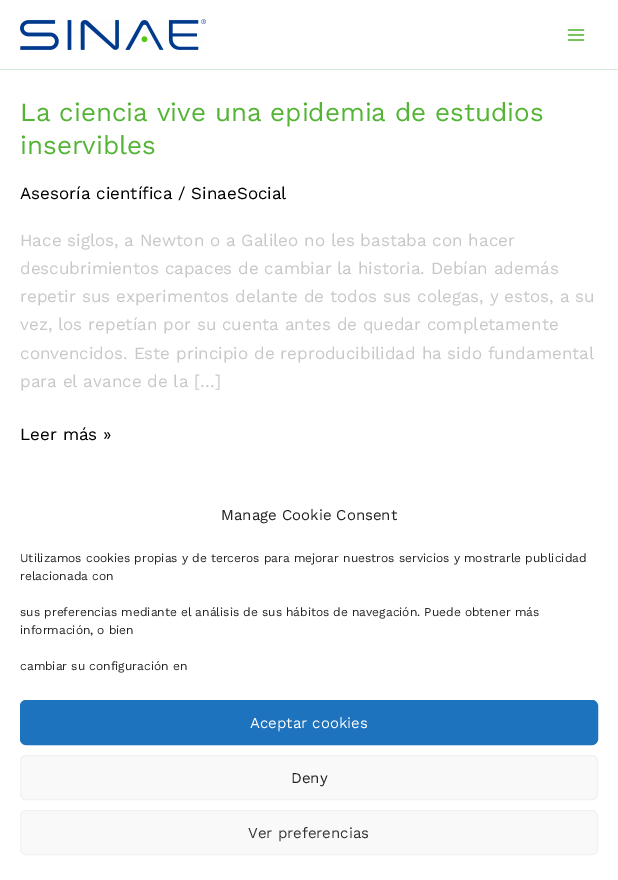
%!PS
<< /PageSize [618 880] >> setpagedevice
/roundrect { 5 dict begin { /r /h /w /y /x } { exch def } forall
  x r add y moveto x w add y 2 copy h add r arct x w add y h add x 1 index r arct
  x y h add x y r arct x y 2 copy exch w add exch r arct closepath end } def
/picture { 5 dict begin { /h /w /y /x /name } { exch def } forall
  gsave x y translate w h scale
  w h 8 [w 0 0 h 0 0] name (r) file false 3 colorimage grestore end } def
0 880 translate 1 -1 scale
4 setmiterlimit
1 setgray
0 0 618 880 rectfill
0.835 0.918 0.847 setrgbcolor
0 69 618 1 rectfill
(img1.rgb) 20 19 186 31 picture
(img2.rgb) 567 29 18 12 picture
/WorkSans-Regular [26 0 0 -26 0 0] selectfont
0.329 0.706 0.208 setrgbcolor
20 121 moveto (La ciencia vive una epidemia de estudios) show
20 154 moveto (inservibles) show
/WorkSans-Regular [17 0 0 -17 0 0] selectfont
0 setgray
20 199 moveto (Asesoría científica / SinaeSocial) show
0.784 setgray
20 246 moveto (Hace siglos, a Newton o a Galileo no les bastaba con hacer) show
20 274 moveto (descubrimientos capaces de cambiar la historia. Debían además) show
20 302 moveto (repetir sus experimentos delante de todos sus colegas, y estos, a su) show
20 330 moveto (vez, los repetían por su cuenta antes de quedar completamente) show
20 359 moveto (convencidos. Este principio de reproducibilidad ha sido fundamental) show
20 387 moveto (para el avance de la […]) show
0 setgray
20 440 moveto (Leer más ») show
/WorkSans-Regular [15 0 0 -15 0 0] selectfont
0.133 setgray
221 520 moveto (Manage Cookie Consent) show
/WorkSans-Regular [12 0 0 -12 0 0] selectfont
20 562 moveto (Utilizamos cookies propias y de terceros para mejorar nuestros servicios y mostrarle publicidad) show
20 580 moveto (relacionada con) show
20 616 moveto (sus preferencias mediante el análisis de sus hábitos de navegación. Puede obtener más) show
20 634 moveto (información, o bien) show
20 670 moveto (cambiar su configuración en) show
0.118 0.451 0.745 setrgbcolor
20.5 700.5 577 44 5.5 roundrect gsave fill grestore
stroke
/WorkSans-Regular [15 0 0 -15 0 0] selectfont
1 setgray
250 728 moveto (Aceptar cookies) show
0.976 setgray
20.5 755.5 577 44 5.5 roundrect gsave fill grestore
0.949 setgray
stroke
0.133 setgray
291 783 moveto (Deny) show
0.976 setgray
20.5 810.5 577 44 5.5 roundrect gsave fill grestore
0.949 setgray
stroke
0.2 setgray
248 838 moveto (Ver preferencias) show
showpage
